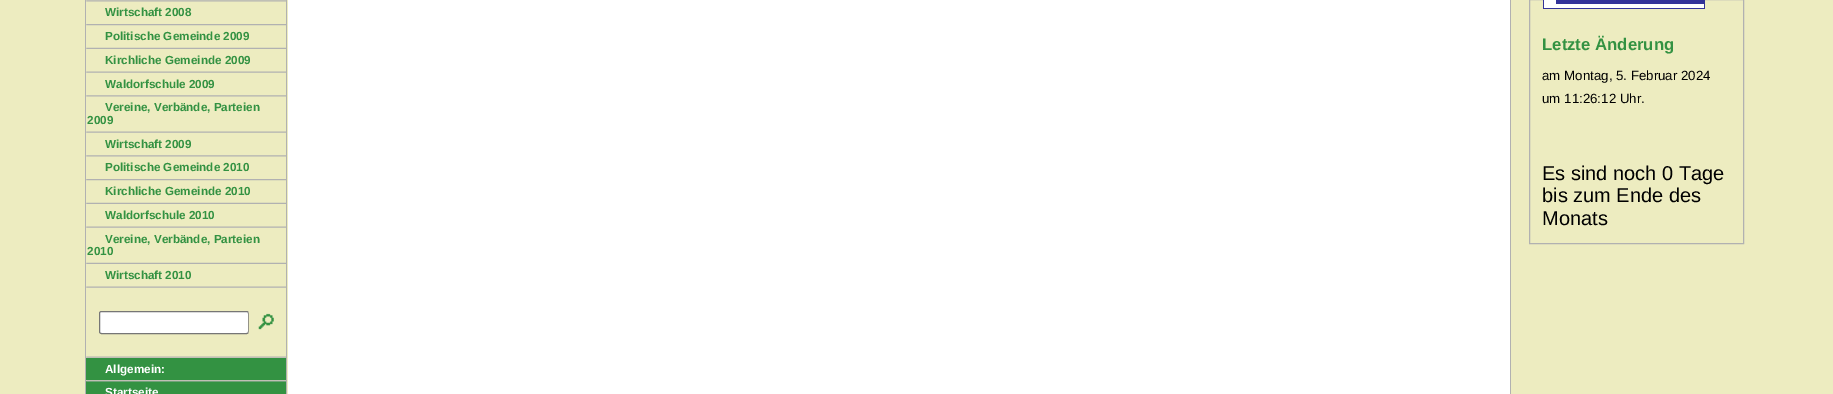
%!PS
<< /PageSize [1833 394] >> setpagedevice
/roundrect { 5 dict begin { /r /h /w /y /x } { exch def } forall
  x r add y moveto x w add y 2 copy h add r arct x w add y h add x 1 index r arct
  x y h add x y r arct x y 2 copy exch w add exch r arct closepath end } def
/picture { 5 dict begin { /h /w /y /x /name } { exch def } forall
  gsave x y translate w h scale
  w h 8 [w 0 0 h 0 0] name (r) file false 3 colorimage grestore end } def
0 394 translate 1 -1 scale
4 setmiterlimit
0.929 0.925 0.753 setrgbcolor
0 0 1833 394 rectfill
0.694 setgray
85 0 1 394 rectfill
(img1.rgb) 86 0 200 2 picture
/LiberationSans-Bold [11.7 0 0 -11.7 0 0] selectfont
0.2 0.573 0.259 setrgbcolor
105 16 moveto (Wirtschaft 2008) show
(img2.rgb) 86 24 200 2 picture
105 40 moveto (Politische Gemeinde 2009) show
(img3.rgb) 86 47 200 2 picture
105 64 moveto (Kirchliche Gemeinde 2009) show
(img4.rgb) 86 71 200 2 picture
105 88 moveto (Waldorfschule 2009) show
(img1.rgb) 86 95 200 2 picture
105 111 moveto (Vereine, Verbände, Parteien) show
87 124 moveto (2009) show
(img4.rgb) 86 131 200 2 picture
105 148 moveto (Wirtschaft 2009) show
(img1.rgb) 86 155 200 2 picture
105 171 moveto (Politische Gemeinde 2010) show
(img2.rgb) 86 179 200 2 picture
105 195 moveto (Kirchliche Gemeinde 2010) show
(img3.rgb) 86 202 200 2 picture
105 219 moveto (Waldorfschule 2010) show
(img4.rgb) 86 226 200 2 picture
105 243 moveto (Vereine, Verbände, Parteien) show
87 255 moveto (2010) show
(img3.rgb) 86 262 200 2 picture
105 279 moveto (Wirtschaft 2010) show
(img4.rgb) 86 286 200 2 picture
1 setgray
99.5 311.5 149 22 2 roundrect gsave fill grestore
0.463 setgray
stroke
(img5.rgb) 248 312 26 21 picture
(img4.rgb) 86 356 200 2 picture
0.2 0.573 0.259 setrgbcolor
86 358 200 22 rectfill
1 setgray
105 373 moveto (Allgemein:) show
0.2 0.573 0.259 setrgbcolor
86 381 200 13 rectfill
(img6.rgb) 86 380 200 2 picture
1 setgray
105 396 moveto (Startseite) show
0.694 setgray
286 0 1 394 rectfill
1 setgray
288 0 1222 394 rectfill
0.694 setgray
1510 0 1 394 rectfill
1529.5 -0.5 214 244 rectstroke
0.2 0.2 0.6 setrgbcolor
1543 0 162 9 rectfill
1 setgray
1544 0 12 4 rectfill
1543 4 162 4 rectfill
0.2 0.2 0.6 setrgbcolor
1543 4 1 4 rectfill
1704 4 1 4 rectfill
/LiberationSans-Bold [16.75 0 0 -16.75 0 0] selectfont
0.2 0.573 0.259 setrgbcolor
1542 50 moveto (Letzte Änderung) show
/LiberationSans-Regular [13.3 0 0 -13.3 0 0] selectfont
0 setgray
1542 80 moveto (am Montag, 5. Februar 2024) show
1542 103 moveto (um 11:26:12 Uhr.) show
/LiberationSans-Regular [20 0 0 -20 0 0] selectfont
1542 180 moveto (Es sind noch 0 Tage) show
1542 202 moveto (bis zum Ende des) show
1542 225 moveto (Monats) show
showpage
